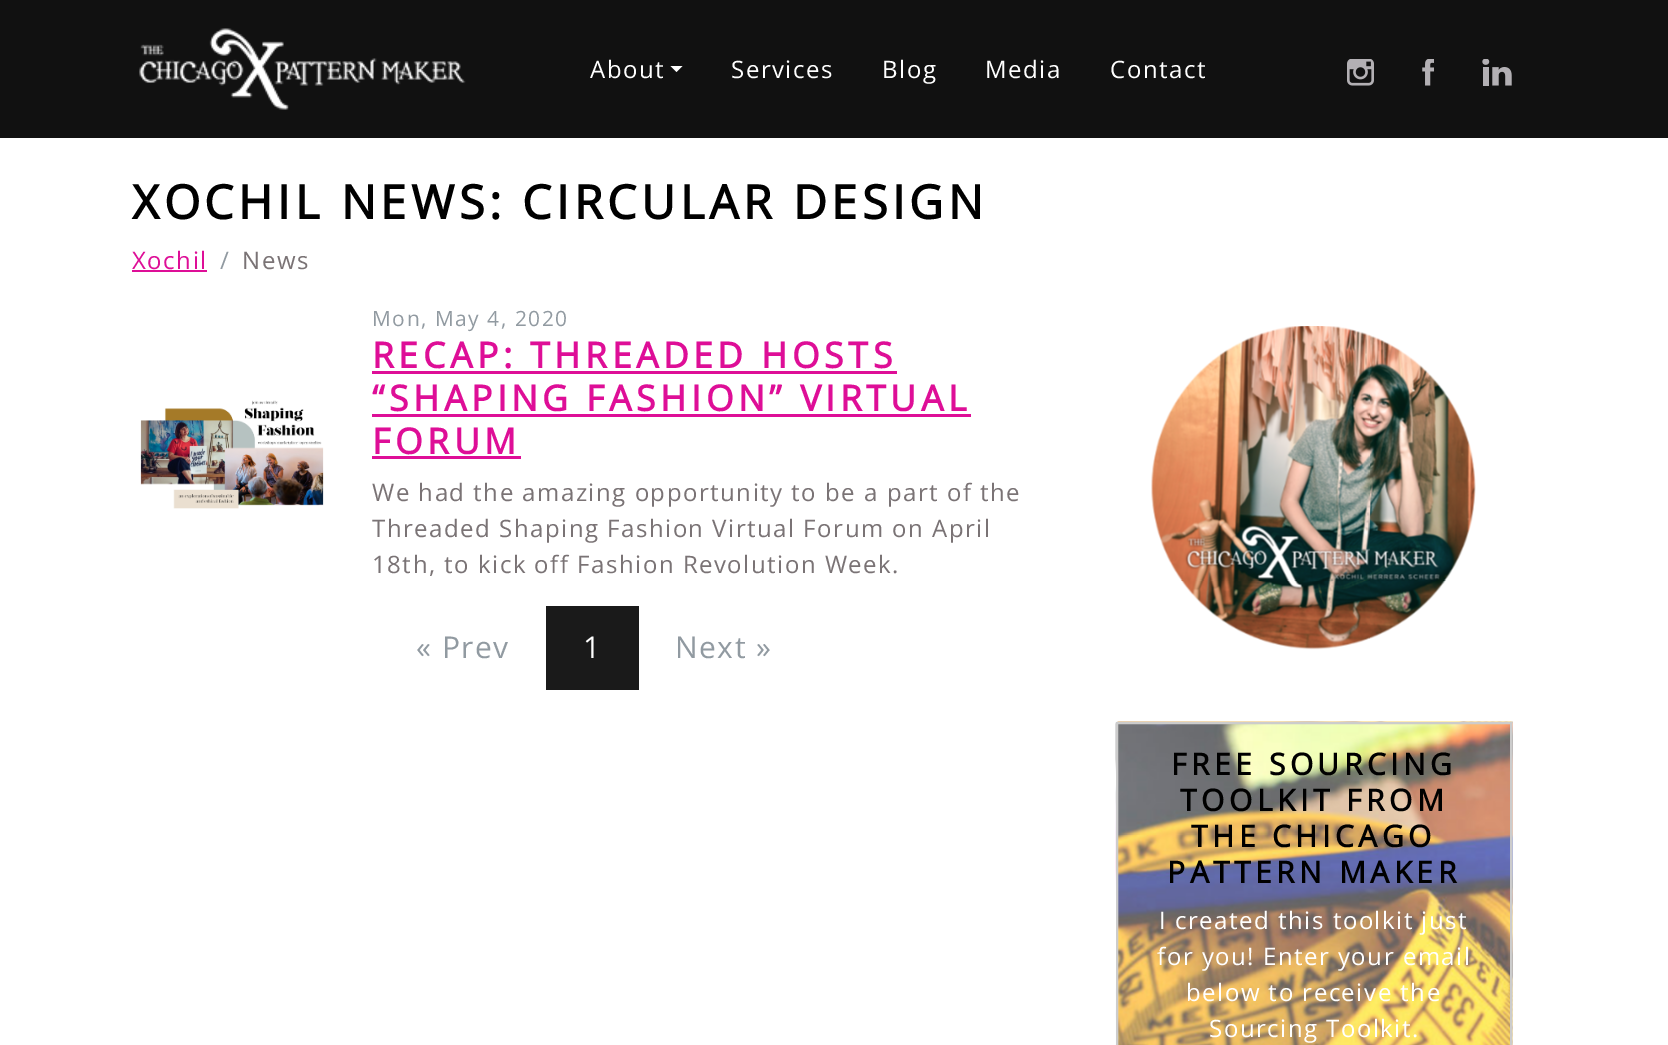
%!PS
<< /PageSize [1668 1045] >> setpagedevice
/picture { 5 dict begin { /h /w /y /x /name } { exch def } forall
  gsave x y translate w h scale
  w h 8 [w 0 0 h 0 0] name (r) file false 3 colorimage grestore end } def
0 1045 translate 1 -1 scale
4 setmiterlimit
1 setgray
0 0 1668 1045 rectfill
0.067 setgray
0 0 1668 138 rectfill
(img1.rgb) 139 28 327 82 picture
/OpenSans-Regular [24 0 0 -24 0 0] selectfont
1 setgray
590 78 moveto 1.5 0 (About) ashow
newpath 670.5 66 moveto 682.5 66 lineto 676.5 72 lineto closepath fill
731 78 moveto 1.5 0 (Services) ashow
882 78 moveto 1.5 0 (Blog) ashow
985 78 moveto 1.5 0 (Media) ashow
1110 78 moveto 1.5 0 (Contact) ashow
(img2.rgb) 1347 59 27 27 picture
(img3.rgb) 1422 59 12 27 picture
(img4.rgb) 1482 59 30 27 picture
/OpenSans-Bold [46.8 0 0 -46.8 0 0] selectfont
0 setgray
132 219 moveto 4.5 0 (XOCHIL NEWS: CIRCULAR DESIGN) ashow
/OpenSans-Regular [24 0 0 -24 0 0] selectfont
0.871 0.055 0.592 setrgbcolor
132 269 moveto 1.5 0 (Xochil) ashow
132 270 75 2 rectfill
0.569 0.604 0.631 setrgbcolor
220 269 moveto 1.5 0 (/) ashow
0.478 0.451 0.459 setrgbcolor
242 269 moveto 1.5 0 (News) ashow
(img5.rgb) 140 400 184 109 picture
/OpenSans-Regular [21 0 0 -21 0 0] selectfont
0.569 0.604 0.631 setrgbcolor
372 326 moveto 1.5 0 (Mon, May 4, 2020) ashow
/OpenSans-Bold [35.6 0 0 -35.6 0 0] selectfont
0.871 0.055 0.592 setrgbcolor
372 368 moveto 4.5 0 (RECAP: THREADED HOSTS) ashow
372 371 525 3 rectfill
372 411 moveto 4.5 0 (“SHAPING FASHION” VIRTUAL) ashow
372 414 599 3 rectfill
372 454 moveto 4.5 0 (FORUM) ashow
372 456 149 3 rectfill
/OpenSans-Regular [24 0 0 -24 0 0] selectfont
0.478 0.451 0.459 setrgbcolor
372 501 moveto 1.5 0 (We had the amazing opportunity to be a part of the) ashow
372 537 moveto 1.5 0 (Threaded Shaping Fashion Virtual Forum on April) ashow
372 573 moveto 1.5 0 (18th, to kick off Fashion Revolution Week.) ashow
/OpenSans-Regular [30 0 0 -30 0 0] selectfont
0.569 0.604 0.631 setrgbcolor
416 658 moveto 1.5 0 (« Prev) ashow
0.102 setgray
546 606 93 84 rectfill
1 setgray
583 658 moveto 1.5 0 (1) ashow
0.569 0.604 0.631 setrgbcolor
675 658 moveto 1.5 0 (Next ») ashow
(img6.rgb) 1151 326 325 324 picture
(img7.rgb) 1115 721 398 324 picture
0.8 setgray
2 setlinewidth
1117 723 394 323 rectstroke
/OpenSans-Bold [30 0 0 -30 0 0] selectfont
0 setgray
1171 775 moveto 4.5 0 (FREE SOURCING) ashow
1180 811 moveto 4.5 0 (TOOLKIT FROM) ashow
1191 847 moveto 4.5 0 (THE CHICAGO) ashow
1167 883 moveto 4.5 0 (PATTERN MAKER) ashow
/OpenSans-Regular [24 0 0 -24 0 0] selectfont
1 setgray
1159 929 moveto 1.5 0 (I created this toolkit just) ashow
1157 965 moveto 1.5 0 (for you! Enter your email) ashow
1186 1001 moveto 1.5 0 (below to receive the) ashow
1209 1037 moveto 1.5 0 (Sourcing Toolkit.) ashow
showpage
